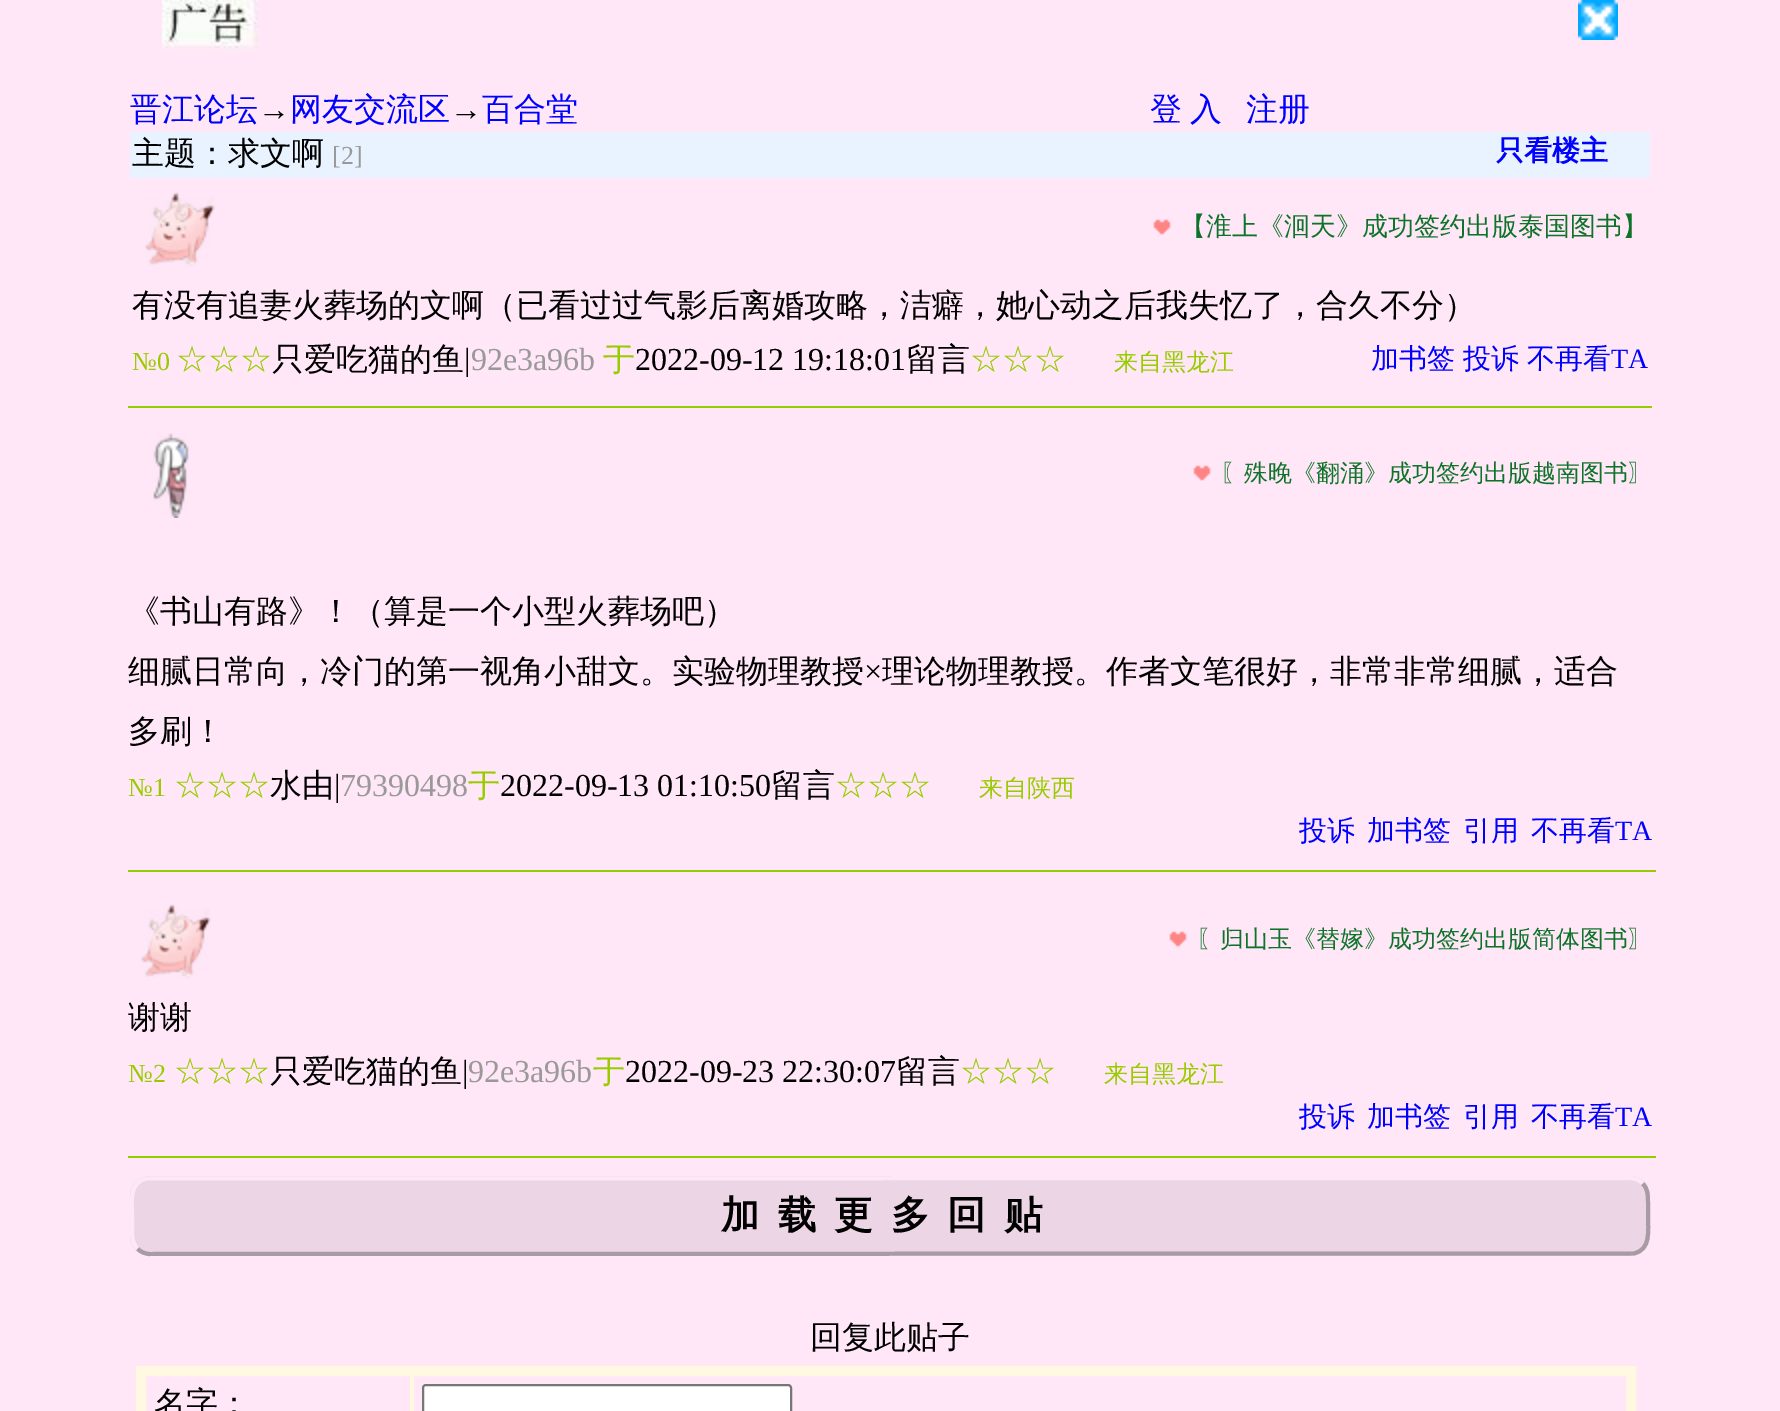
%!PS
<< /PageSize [1780 1411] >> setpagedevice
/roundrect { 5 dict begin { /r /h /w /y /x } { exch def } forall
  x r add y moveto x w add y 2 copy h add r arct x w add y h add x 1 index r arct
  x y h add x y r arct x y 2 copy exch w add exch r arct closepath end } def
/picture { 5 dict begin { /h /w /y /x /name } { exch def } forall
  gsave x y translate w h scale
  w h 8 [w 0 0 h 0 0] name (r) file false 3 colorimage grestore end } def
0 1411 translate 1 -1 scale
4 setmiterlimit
1 0.906 0.969 setrgbcolor
0 0 1780 1411 rectfill
(img1.rgb) 162 0 97 51 picture
(img2.rgb) 1578 0 40 40 picture
/WenQuanYiZenHei-Medium [32 0 0 -32 0 0] selectfont
0 0 1 setrgbcolor
130 120 moveto (晋江论坛) show
/LiberationSerif-Regular [32 0 0 -32 0 0] selectfont
0 setgray
258 120 moveto (→) show
/WenQuanYiZenHei-Medium [32 0 0 -32 0 0] selectfont
0 0 1 setrgbcolor
290 120 moveto (网友交流区) show
/LiberationSerif-Regular [32 0 0 -32 0 0] selectfont
0 setgray
450 120 moveto (→) show
/WenQuanYiZenHei-Medium [32 0 0 -32 0 0] selectfont
0 0 1 setrgbcolor
482 120 moveto (百合堂) show
1150 120 moveto -2 0 32 (登 入) widthshow
1246 120 moveto (注册) show
0.91 0.953 1 setrgbcolor
130 132 1520 46 rectfill
0 setgray
132 164 moveto (主题：求文啊) show
/LiberationSerif-Regular [26 0 0 -26 0 0] selectfont
0.6 setgray
332 164 moveto ([2]) show
/WenQuanYiZenHei-Bold [28 0 0 -28 0 0] selectfont
0 0 1 setrgbcolor
1496 160 moveto (只看楼主) show
(img3.rgb) 145 192 70 75 picture
(img4.rgb) 1153 219 18 16 picture
/WenQuanYiZenHei-Medium [26 0 0 -26 0 0] selectfont
0.051 0.451 0.157 setrgbcolor
1180 235 moveto (【淮上《洄天》成功签约出版泰国图书】) show
/WenQuanYiZenHei-Medium [32 0 0 -32 0 0] selectfont
0 setgray
132 316 moveto (有没有追妻火葬场的文啊（已看过过气影后离婚攻略，洁癖，她心动之后我失忆了，合久不分）) show
/LiberationSerif-Regular [26 0 0 -26 0 0] selectfont
0.6 0.8 0 setrgbcolor
132 370 moveto (№0) show
/WenQuanYiZenHei-Medium [32 0 0 -32 0 0] selectfont
176 370 moveto (☆☆☆) show
0 setgray
272 370 moveto (只爱吃猫的鱼) show
/LiberationSerif-Regular [32 0 0 -32 0 0] selectfont
464 370 moveto (|) show
0.6 setgray
471 370 moveto (92e3a96b) show
/WenQuanYiZenHei-Medium [32 0 0 -32 0 0] selectfont
0.6 0.8 0 setrgbcolor
603 370 moveto (于) show
/LiberationSerif-Regular [32 0 0 -32 0 0] selectfont
0 setgray
635 370 moveto (2022-09-12 19:18:01) show
/WenQuanYiZenHei-Medium [32 0 0 -32 0 0] selectfont
906 370 moveto (留言) show
0.6 0.8 0 setrgbcolor
970 370 moveto (☆☆☆) show
/WenQuanYiZenHei-Medium [24 0 0 -24 0 0] selectfont
1114 370 moveto (来自黑龙江) show
/WenQuanYiZenHei-Medium [28 0 0 -28 0 0] selectfont
0 0 1 setrgbcolor
1371 368 moveto (加书签) show
1463 368 moveto (投诉) show
1527 368 moveto (不再看) show
/LiberationSerif-Regular [28 0 0 -28 0 0] selectfont
1611 368 moveto (TA) show
0.6 0.8 0 setrgbcolor
128 406 1524 2 rectfill
(img5.rgb) 153 433 36 85 picture
(img4.rgb) 1193 465 18 16 picture
/WenQuanYiZenHei-Medium [24 0 0 -24 0 0] selectfont
0.051 0.451 0.157 setrgbcolor
1220 481 moveto (〖殊晚《翻涌》成功签约出版越南图书〗) show
/WenQuanYiZenHei-Medium [32 0 0 -32 0 0] selectfont
0 setgray
128 622 moveto (《书山有路》！（算是一个小型火葬场吧）) show
128 682 moveto (细腻日常向，冷门的第一视角小甜文。实验物理教授) show
/LiberationSerif-Regular [32 0 0 -32 0 0] selectfont
864 682 moveto (×) show
/WenQuanYiZenHei-Medium [32 0 0 -32 0 0] selectfont
882 682 moveto (理论物理教授。作者文笔很好，非常非常细腻，适合) show
128 742 moveto (多刷！) show
/LiberationSerif-Regular [26 0 0 -26 0 0] selectfont
0.6 0.8 0 setrgbcolor
128 796 moveto (№1) show
/WenQuanYiZenHei-Medium [32 0 0 -32 0 0] selectfont
174 796 moveto (☆☆☆) show
0 setgray
270 796 moveto (水由) show
/LiberationSerif-Regular [32 0 0 -32 0 0] selectfont
334 796 moveto (|) show
0.6 setgray
340 796 moveto (79390498) show
/WenQuanYiZenHei-Medium [32 0 0 -32 0 0] selectfont
0.6 0.8 0 setrgbcolor
468 796 moveto (于) show
/LiberationSerif-Regular [32 0 0 -32 0 0] selectfont
0 setgray
500 796 moveto (2022-09-13 01:10:50) show
/WenQuanYiZenHei-Medium [32 0 0 -32 0 0] selectfont
771 796 moveto (留言) show
0.6 0.8 0 setrgbcolor
835 796 moveto (☆☆☆) show
/WenQuanYiZenHei-Medium [24 0 0 -24 0 0] selectfont
979 796 moveto (来自陕西) show
/WenQuanYiZenHei-Medium [28 0 0 -28 0 0] selectfont
0 0 1 setrgbcolor
1299 840 moveto (投诉) show
1367 840 moveto (加书签) show
1463 840 moveto (引用) show
1531 840 moveto (不再看) show
/LiberationSerif-Regular [28 0 0 -28 0 0] selectfont
1615 840 moveto (TA) show
0.6 0.8 0 setrgbcolor
128 870 1528 2 rectfill
(img3.rgb) 141 904 70 75 picture
(img4.rgb) 1169 931 18 16 picture
/WenQuanYiZenHei-Medium [24 0 0 -24 0 0] selectfont
0.051 0.451 0.157 setrgbcolor
1196 947 moveto (〖归山玉《替嫁》成功签约出版简体图书〗) show
/WenQuanYiZenHei-Medium [32 0 0 -32 0 0] selectfont
0 setgray
128 1028 moveto (谢谢) show
/LiberationSerif-Regular [26 0 0 -26 0 0] selectfont
0.6 0.8 0 setrgbcolor
128 1082 moveto (№2) show
/WenQuanYiZenHei-Medium [32 0 0 -32 0 0] selectfont
174 1082 moveto (☆☆☆) show
0 setgray
270 1082 moveto (只爱吃猫的鱼) show
/LiberationSerif-Regular [32 0 0 -32 0 0] selectfont
462 1082 moveto (|) show
0.6 setgray
468 1082 moveto (92e3a96b) show
/WenQuanYiZenHei-Medium [32 0 0 -32 0 0] selectfont
0.6 0.8 0 setrgbcolor
593 1082 moveto (于) show
/LiberationSerif-Regular [32 0 0 -32 0 0] selectfont
0 setgray
625 1082 moveto (2022-09-23 22:30:07) show
/WenQuanYiZenHei-Medium [32 0 0 -32 0 0] selectfont
896 1082 moveto (留言) show
0.6 0.8 0 setrgbcolor
960 1082 moveto (☆☆☆) show
/WenQuanYiZenHei-Medium [24 0 0 -24 0 0] selectfont
1104 1082 moveto (来自黑龙江) show
/WenQuanYiZenHei-Medium [28 0 0 -28 0 0] selectfont
0 0 1 setrgbcolor
1299 1126 moveto (投诉) show
1367 1126 moveto (加书签) show
1463 1126 moveto (引用) show
1531 1126 moveto (不再看) show
/LiberationSerif-Regular [28 0 0 -28 0 0] selectfont
1615 1126 moveto (TA) show
0.6 0.8 0 setrgbcolor
128 1156 1528 2 rectfill
0.925 0.835 0.894 setrgbcolor
130 1176 1520 80 20 roundrect fill
0.659 0.608 0.643 setrgbcolor
4 setlinewidth
newpath 1642.5 1183.5 moveto 1648 1188.5 1648 1195.5 1648 1202.5 curveto 1648 1216 lineto 1648 1229.5 1651.5 1250 1633.5 1253.5 curveto 150 1254 lineto 145.5 1254 140.5 1252 137.5 1248.5 curveto stroke
0.988 0.91 0.965 setrgbcolor
newpath 137.5 1248.5 moveto 132 1243.5 132 1236.5 132 1229.5 curveto 132 1216 lineto 132 1202.5 128.5 1182 146.5 1178.5 curveto 1630 1178 lineto 1634.5 1178 1639.5 1180 1642.5 1183.5 curveto stroke
/WenQuanYiZenHei-Bold [38.5 0 0 -38.5 0 0] selectfont
0 setgray
721 1228 moveto 18 0 (加载更多回贴) ashow
/WenQuanYiZenHei-Medium [32 0 0 -32 0 0] selectfont
810 1348 moveto (回复此贴子) show
1 0.976 0.882 setrgbcolor
8 setlinewidth
140 1370 1492 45 rectstroke
2 setlinewidth
145 1375 266 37 rectstroke
0 setgray
154 1414 moveto (名字：) show
1 0.976 0.882 setrgbcolor
413 1375 1214 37 rectstroke
1 setgray
423 1385 368 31 3 roundrect gsave fill grestore
0.463 setgray
stroke
showpage
